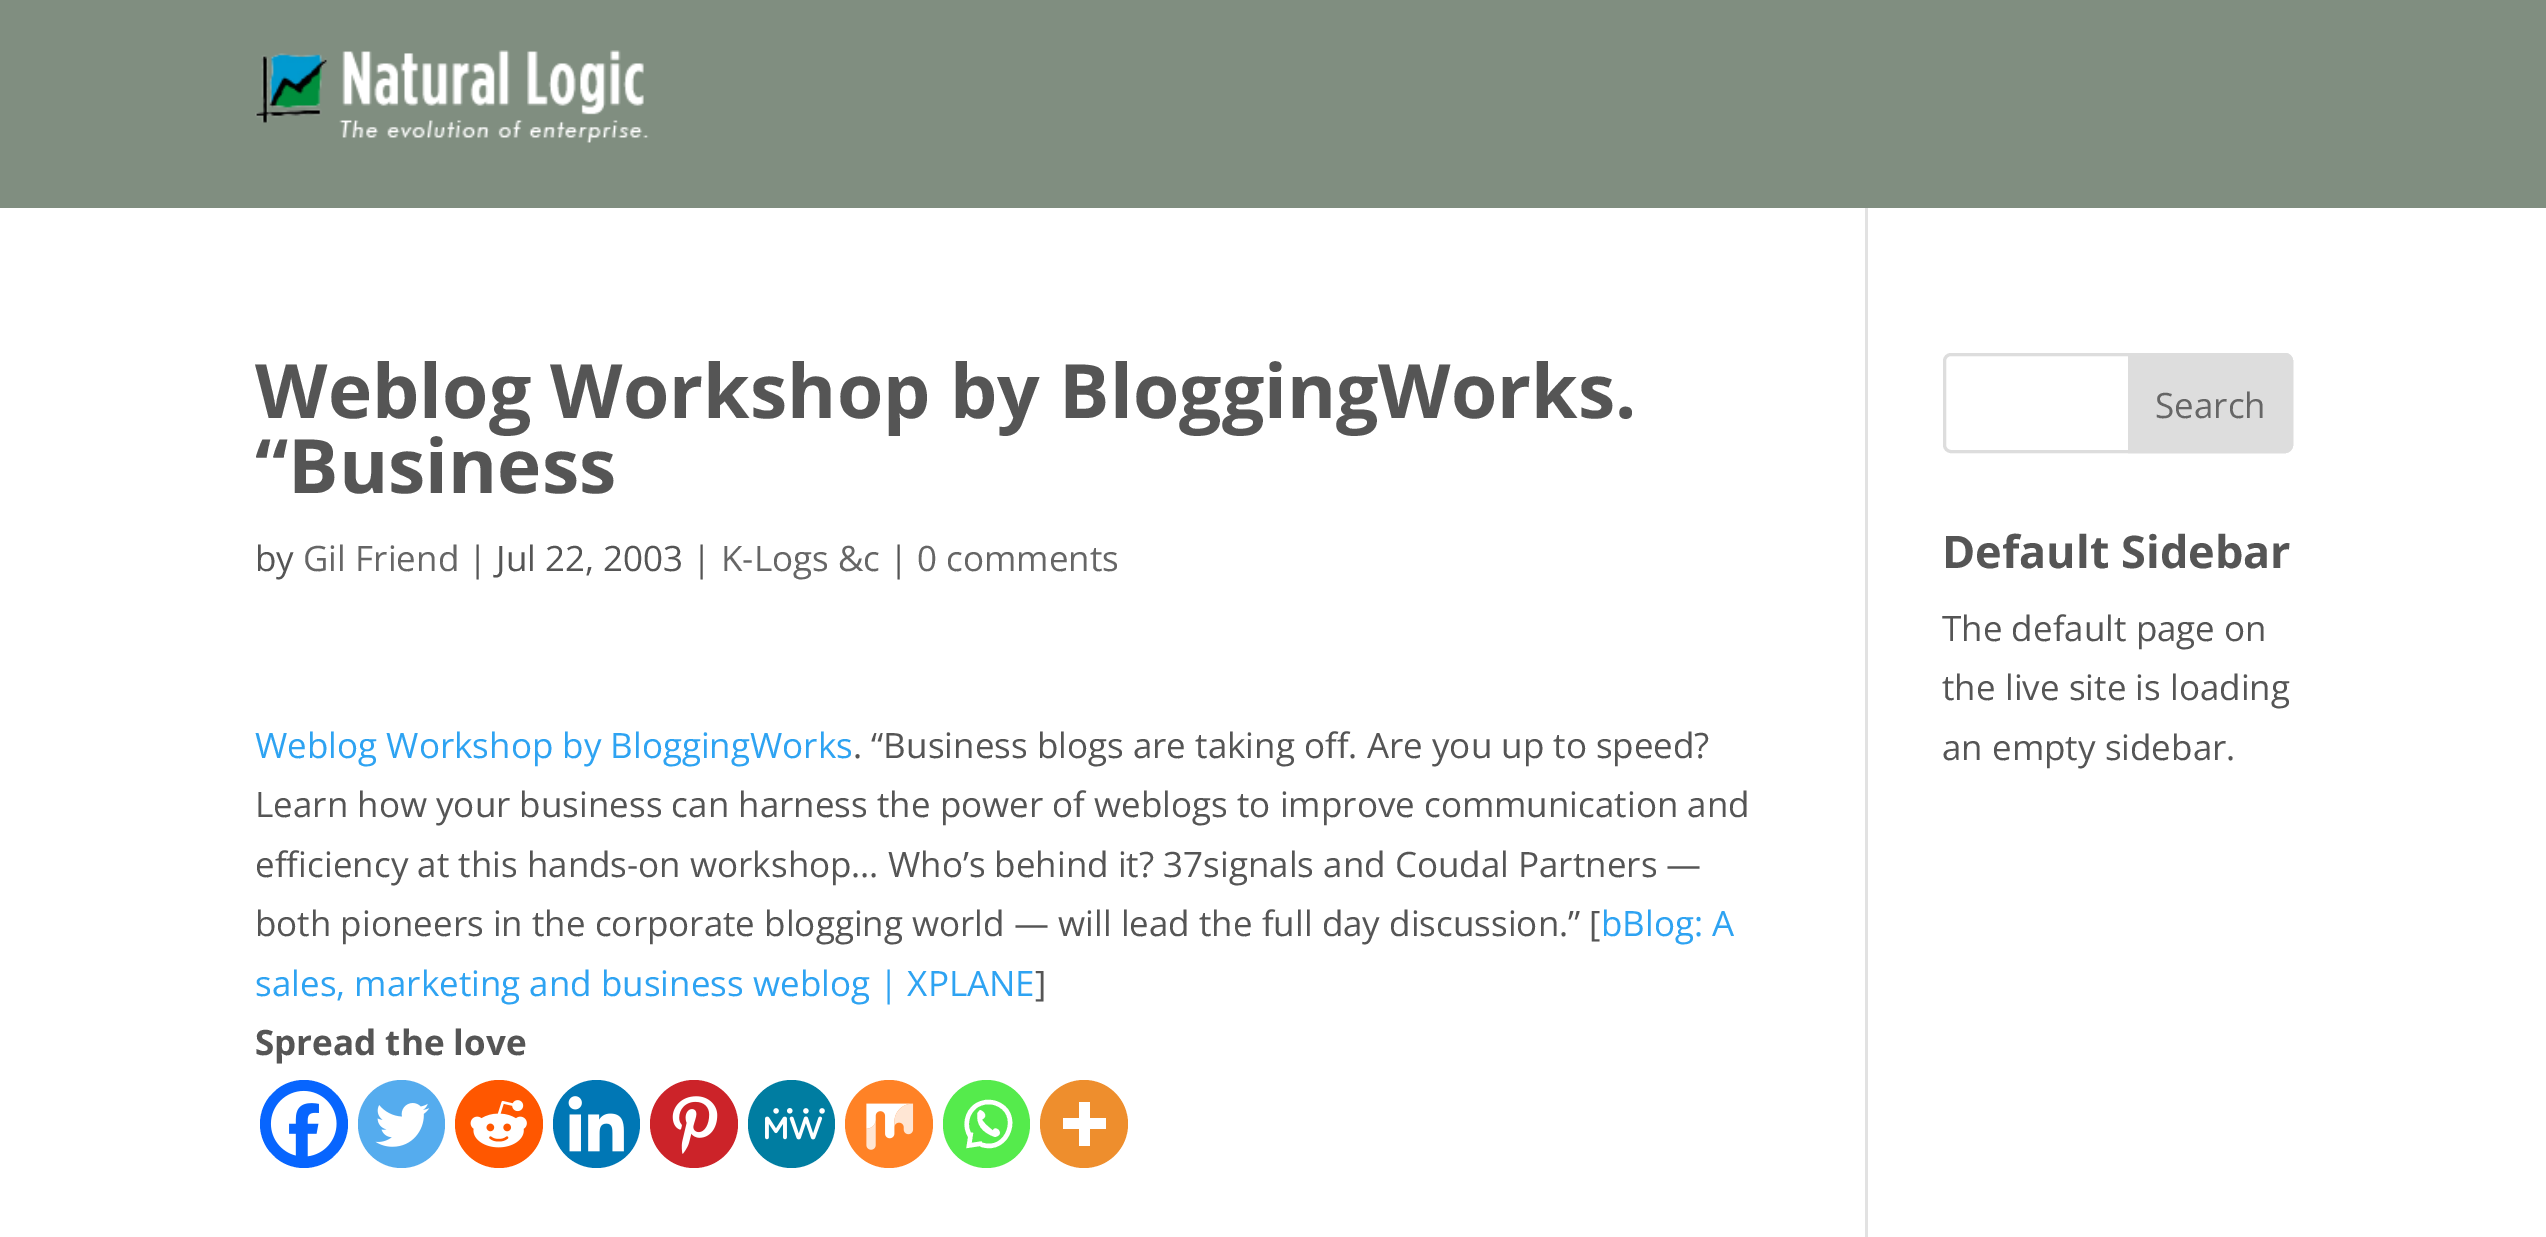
%!PS
<< /PageSize [2546 1237] >> setpagedevice
/roundrect { 5 dict begin { /r /h /w /y /x } { exch def } forall
  x r add y moveto x w add y 2 copy h add r arct x w add y h add x 1 index r arct
  x y h add x y r arct x y 2 copy exch w add exch r arct closepath end } def
/picture { 5 dict begin { /h /w /y /x /name } { exch def } forall
  gsave x y translate w h scale
  w h 8 [w 0 0 h 0 0] name (r) file false 3 colorimage grestore end } def
0 1237 translate 1 -1 scale
4 setmiterlimit
1 setgray
0 0 2546 1237 rectfill
0.502 0.557 0.502 setrgbcolor
0 0 2546 208 rectfill
(img1.rgb) 255 50 394 93 picture
0.886 setgray
1865 208 3 1029 rectfill
/OpenSans-Bold [75 0 0 -75 0 0] selectfont
0.333 setgray
255 418 moveto (Weblog Workshop by BloggingWorks.) show
255 493 moveto (“Business) show
/OpenSans-Regular [35 0 0 -35 0 0] selectfont
255 571 moveto (by) show
0.4 setgray
303 571 moveto (Gil Friend) show
0.333 setgray
468 571 moveto (| Jul 22, 2003 |) show
0.4 setgray
721 571 moveto (K-Logs &c) show
0.333 setgray
889 571 moveto (|) show
0.4 setgray
917 571 moveto (0 comments) show
0.18 0.639 0.949 setrgbcolor
255 758 moveto (Weblog Workshop by BloggingWorks) show
0.333 setgray
853 758 moveto (. “Business blogs are taking off. Are you up to speed?) show
255 817 moveto (Learn how your business can harness the power of weblogs to improve communication and) show
255 877 moveto (efficiency at this hands-on workshop… Who’s behind it? 37signals and Coudal Partners —) show
255 936 moveto (both pioneers in the corporate blogging world — will lead the full day discussion.” [) show
0.18 0.639 0.949 setrgbcolor
1601 936 moveto (bBlog: A) show
255 996 moveto (sales, marketing and business weblog | XPLANE) show
0.333 setgray
1035 996 moveto (]) show
/OpenSans-Bold [35 0 0 -35 0 0] selectfont
255 1055 moveto (Spread the love) show
0.027 0.396 0.996 setrgbcolor
newpath 304 1124 44 0 360 arc closepath fill
(img2.rgb) 270 1090 67 67 picture
0.333 0.675 0.933 setrgbcolor
358 1080 87 88 43.5 roundrect fill
(img3.rgb) 375 1103 55 44 picture
1 0.341 0 setrgbcolor
newpath 499 1124 44 0 360 arc closepath fill
(img4.rgb) 470 1100 57 48 picture
0 0.467 0.71 setrgbcolor
553 1080 87 88 43.5 roundrect fill
(img5.rgb) 568 1096 56 56 picture
0.8 0.137 0.161 setrgbcolor
newpath 694 1124 44 0 360 arc closepath fill
(img6.rgb) 672 1096 46 58 picture
0 0.49 0.631 setrgbcolor
748 1080 87 88 43.5 roundrect fill
(img7.rgb) 765 1108 60 32 picture
1 0.51 0.149 setrgbcolor
newpath 889 1124 44 0 360 arc closepath fill
(img8.rgb) 866 1103 48 47 picture
0.333 0.922 0.298 setrgbcolor
943 1080 87 88 43.5 roundrect fill
1 setgray
4.4 setlinewidth
newpath 981 1144.5 moveto 1008.5 1154.5 1023 1111.5 995 1103 curveto 988.5 1101 982 1102 976.5 1105.5 curveto 966.5 1112 963.5 1126.5 970.5 1136.5 curveto 971 1132.5 moveto 969 1145.5 lineto 982 1143.5 lineto stroke
newpath 977.5 1113 moveto 976 1124.5 982 1132.5 995 1137 curveto 1006 1134.5 995 1124 993 1130.5 curveto 987 1126 983.5 1122.5 982 1119.5 curveto 990.5 1115 979.5 1108.5 979.5 1110.5 curveto fill
0.933 0.557 0.176 setrgbcolor
newpath 1084 1124 44 0 360 arc closepath fill
1 setgray
newpath 1090 1118 moveto 1090 1102 lineto 1079 1102 lineto 1079 1118 lineto 1063 1118 lineto 1063 1129 lineto 1079 1129 lineto 1079 1146 lineto 1090 1146 lineto 1090 1129 lineto 1106 1129 lineto 1106 1118 lineto closepath eofill
0.867 setgray
3 setlinewidth
1944.5 354.5 347 97 6.5 roundrect stroke
newpath 2129.5 354.5 moveto 2285 354.5 lineto 2288.5 354.5 2291.5 357.5 2291.5 361 curveto 2291.5 445 lineto 2291.5 448.5 2288.5 451.5 2285 451.5 curveto 2129.5 451.5 lineto closepath gsave fill grestore
stroke
/OpenSans-Regular [35 0 0 -35 0 0] selectfont
0.4 setgray
2155 418 moveto (Search) show
/OpenSans-Bold [45 0 0 -45 0 0] selectfont
0.333 setgray
1942 568 moveto (Default Sidebar) show
/OpenSans-Regular [35 0 0 -35 0 0] selectfont
1942 641 moveto (The default page on) show
1942 700 moveto (the live site is loading) show
1942 760 moveto (an empty sidebar.) show
showpage
